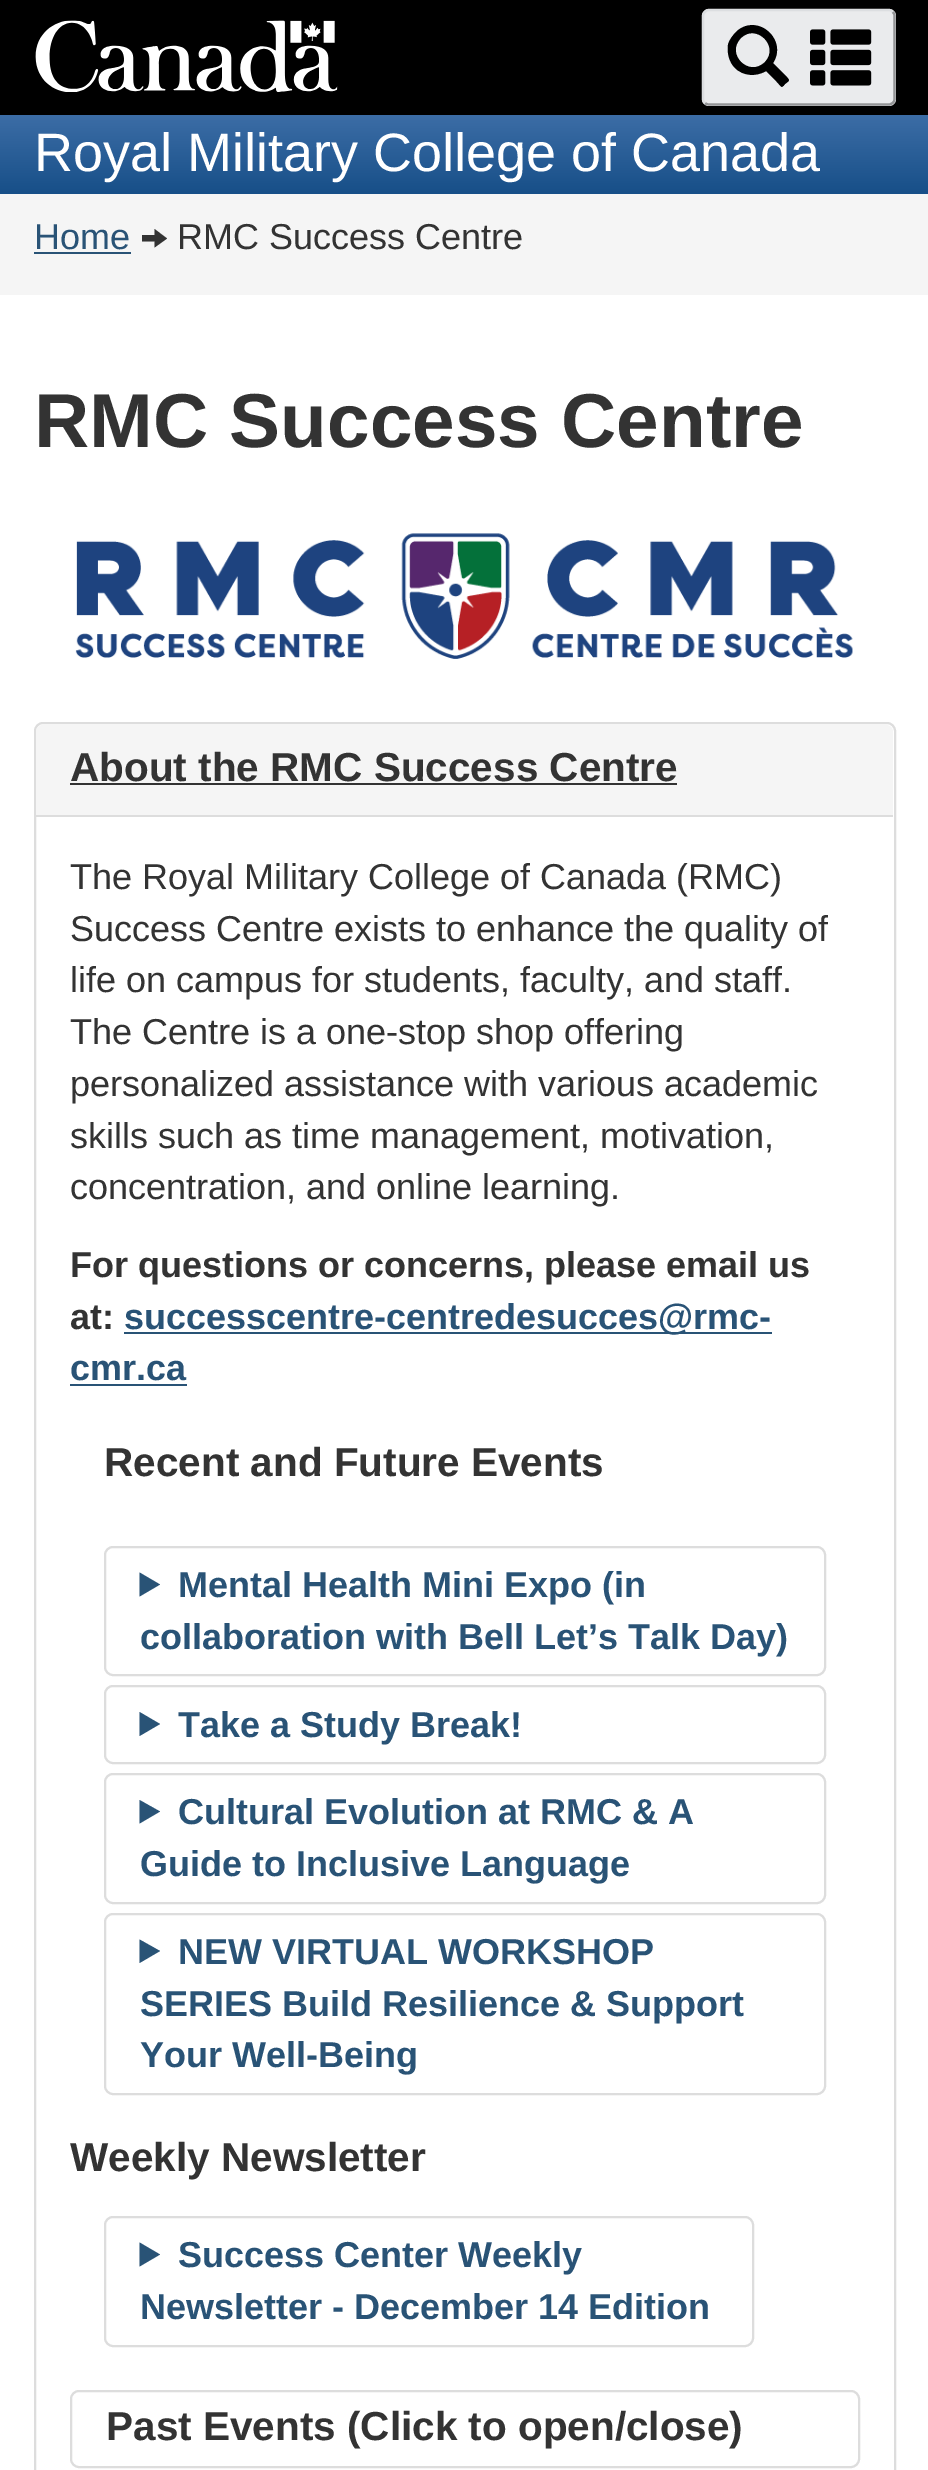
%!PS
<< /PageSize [928 2470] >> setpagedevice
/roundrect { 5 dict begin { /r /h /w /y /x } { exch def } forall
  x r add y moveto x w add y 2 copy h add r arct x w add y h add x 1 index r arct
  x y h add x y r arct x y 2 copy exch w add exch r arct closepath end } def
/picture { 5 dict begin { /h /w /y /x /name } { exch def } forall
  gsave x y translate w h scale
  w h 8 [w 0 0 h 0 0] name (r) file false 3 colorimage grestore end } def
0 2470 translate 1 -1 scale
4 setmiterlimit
1 setgray
0 0 928 2470 rectfill
gsave newpath 0 115 moveto 928 115 lineto 928 194 lineto 0 194 lineto closepath clip newpath
<< /ShadingType 2 /ColorSpace /DeviceRGB /Coords [465 0 465 194] /Extend [true true] /Function << /FunctionType 3 /Domain [0 1] /Functions [<< /FunctionType 2 /Domain [0 1] /C0 [0.267 0.455 0.678] /C1 [0.267 0.455 0.678] /N 1 >> << /FunctionType 2 /Domain [0 1] /C0 [0.267 0.455 0.678] /C1 [0.09 0.31 0.533] /N 1 >>] /Bounds [0.5] /Encode [0 1 0 1] >> >> shfill grestore
0 setgray
0 0 928 115 rectfill
0.918 0.922 0.929 setrgbcolor
702 9 194 97 7 roundrect fill
0.576 0.58 0.588 setrgbcolor
2.2 setlinewidth
newpath 892.5 12 moveto 894 13 894.5 14.5 894.5 15.5 curveto 894.5 99 lineto 894.5 100.5 894 102 892.5 103 curveto 891.5 104 890 104.5 889 104.5 curveto 709 104.5 lineto 707.5 104.5 706 104 705 103 curveto stroke
0.863 0.871 0.882 setrgbcolor
newpath 705 103 moveto 703.5 102 703 100.5 703 99 curveto 703 16 lineto 703 14.5 703.5 13 705 12 curveto 706 10.5 707.5 10 709 10 curveto 889 10 lineto 890 10 891.5 10.5 892.5 12 curveto stroke
0 setgray
newpath 735 68 moveto 729 62 727 53 728 45 curveto 729 40 733 35 737 31 curveto 758 13 788 40 773 63 curveto 786 76 lineto 790 81 790 80 785 84 curveto 781 89 782 87 776 81 curveto 766 71 lineto 756 77 743 76 735 68 curveto closepath 741 38 moveto 725 54 749 78 765 62 curveto 780 46 756 23 741 38 curveto closepath fill
(img1.rgb) 810 29 62 57 picture
(img2.rgb) 35 20 303 72 picture
/LiberationSans-Regular [54 0 0 -54 0 0] selectfont
1 setgray
34 171 moveto (Royal Military College of Canada) show
0.961 setgray
0 194 928 101 rectfill
/LiberationSans-Regular [36 0 0 -36 0 0] selectfont
0.161 0.325 0.463 setrgbcolor
34 249 moveto (Home) show
34 252 97 2 rectfill
0.2 setgray
newpath 142 241.5 moveto 142 235 lineto 154.5 235 lineto 154.5 229 lineto 167 238.5 lineto 154.5 247.5 lineto 154.5 241.5 lineto closepath fill
177 249 moveto (RMC Success Centre) show
/LiberationSans-Bold [76.5 0 0 -76.5 0 0] selectfont
34 447 moveto (RMC Success Centre) show
(img3.rgb) 75 533 778 126 picture
0.867 setgray
2 setlinewidth
35 723 860 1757 8 roundrect stroke
0.961 setgray
newpath 43 725 moveto 886 725 lineto 890 725 893 728 893 732 curveto 893 817 lineto 36 817 lineto 36 732 lineto 36 728 39 725 43 725 curveto closepath fill
0.867 setgray
36 815 857 2 rectfill
/LiberationSans-Bold [40.5 0 0 -40.5 0 0] selectfont
0.2 setgray
70 781 moveto (About the RMC Success Centre) show
70 783 607 2 rectfill
/LiberationSans-Regular [36 0 0 -36 0 0] selectfont
70 889 moveto (The Royal Military College of Canada \(RMC\)) show
70 941 moveto (Success Centre exists to enhance the quality of) show
70 992 moveto (life on campus for students, faculty, and staff.) show
70 1044 moveto (The Centre is a one-stop shop offering) show
70 1096 moveto (personalized assistance with various academic) show
70 1148 moveto (skills such as time management, motivation,) show
70 1199 moveto (concentration, and online learning.) show
/LiberationSans-Bold [36 0 0 -36 0 0] selectfont
70 1277 moveto (For questions or concerns, please email us) show
70 1329 moveto (at:) show
0.161 0.325 0.463 setrgbcolor
124 1332 648 2 rectfill
124 1329 moveto (successcentre-centredesucces@rmc-) show
70 1380 moveto (cmr.ca) show
70 1384 117 2 rectfill
/LiberationSans-Bold [40.5 0 0 -40.5 0 0] selectfont
0.2 setgray
104 1476 moveto (Recent and Future Events) show
0.867 setgray
105 1547 720 128 8 roundrect stroke
0.161 0.325 0.463 setrgbcolor
newpath 139.5 1572.5 moveto 160 1584.5 lineto 139.5 1596.5 lineto closepath fill
/LiberationSans-Bold [36 0 0 -36 0 0] selectfont
178 1597 moveto (Mental Health Mini Expo \(in) show
140 1649 moveto (collaboration with Bell Let’s Talk Day\)) show
0.867 setgray
105 1686 720 77 8 roundrect stroke
0.161 0.325 0.463 setrgbcolor
newpath 139.5 1712 moveto 160 1724 lineto 139.5 1736 lineto closepath fill
178 1737 moveto (Take a Study Break!) show
0.867 setgray
105 1774 720 129 8 roundrect stroke
0.161 0.325 0.463 setrgbcolor
newpath 139.5 1800 moveto 160 1811.5 lineto 139.5 1823.5 lineto closepath fill
178 1824 moveto (Cultural Evolution at RMC & A) show
140 1876 moveto (Guide to Inclusive Language) show
0.867 setgray
105 1914 720 180 8 roundrect stroke
0.161 0.325 0.463 setrgbcolor
newpath 139.5 1939.5 moveto 160 1951 lineto 139.5 1963 lineto closepath fill
178 1964 moveto (NEW VIRTUAL WORKSHOP) show
140 2016 moveto (SERIES Build Resilience & Support) show
140 2067 moveto (Your Well-Being) show
/LiberationSans-Bold [40.5 0 0 -40.5 0 0] selectfont
0.2 setgray
70 2171 moveto (Weekly Newsletter) show
0.867 setgray
105 2217 648 129 8 roundrect stroke
0.161 0.325 0.463 setrgbcolor
newpath 139.5 2242.5 moveto 160 2254.5 lineto 139.5 2266.5 lineto closepath fill
/LiberationSans-Bold [36 0 0 -36 0 0] selectfont
178 2267 moveto (Success Center Weekly) show
140 2319 moveto (Newsletter - December 14 Edition) show
0.867 setgray
71 2391 788 76 8 roundrect stroke
/LiberationSans-Bold [40.5 0 0 -40.5 0 0] selectfont
0.2 setgray
106 2440 moveto (Past Events \(Click to open/close\)) show
showpage
